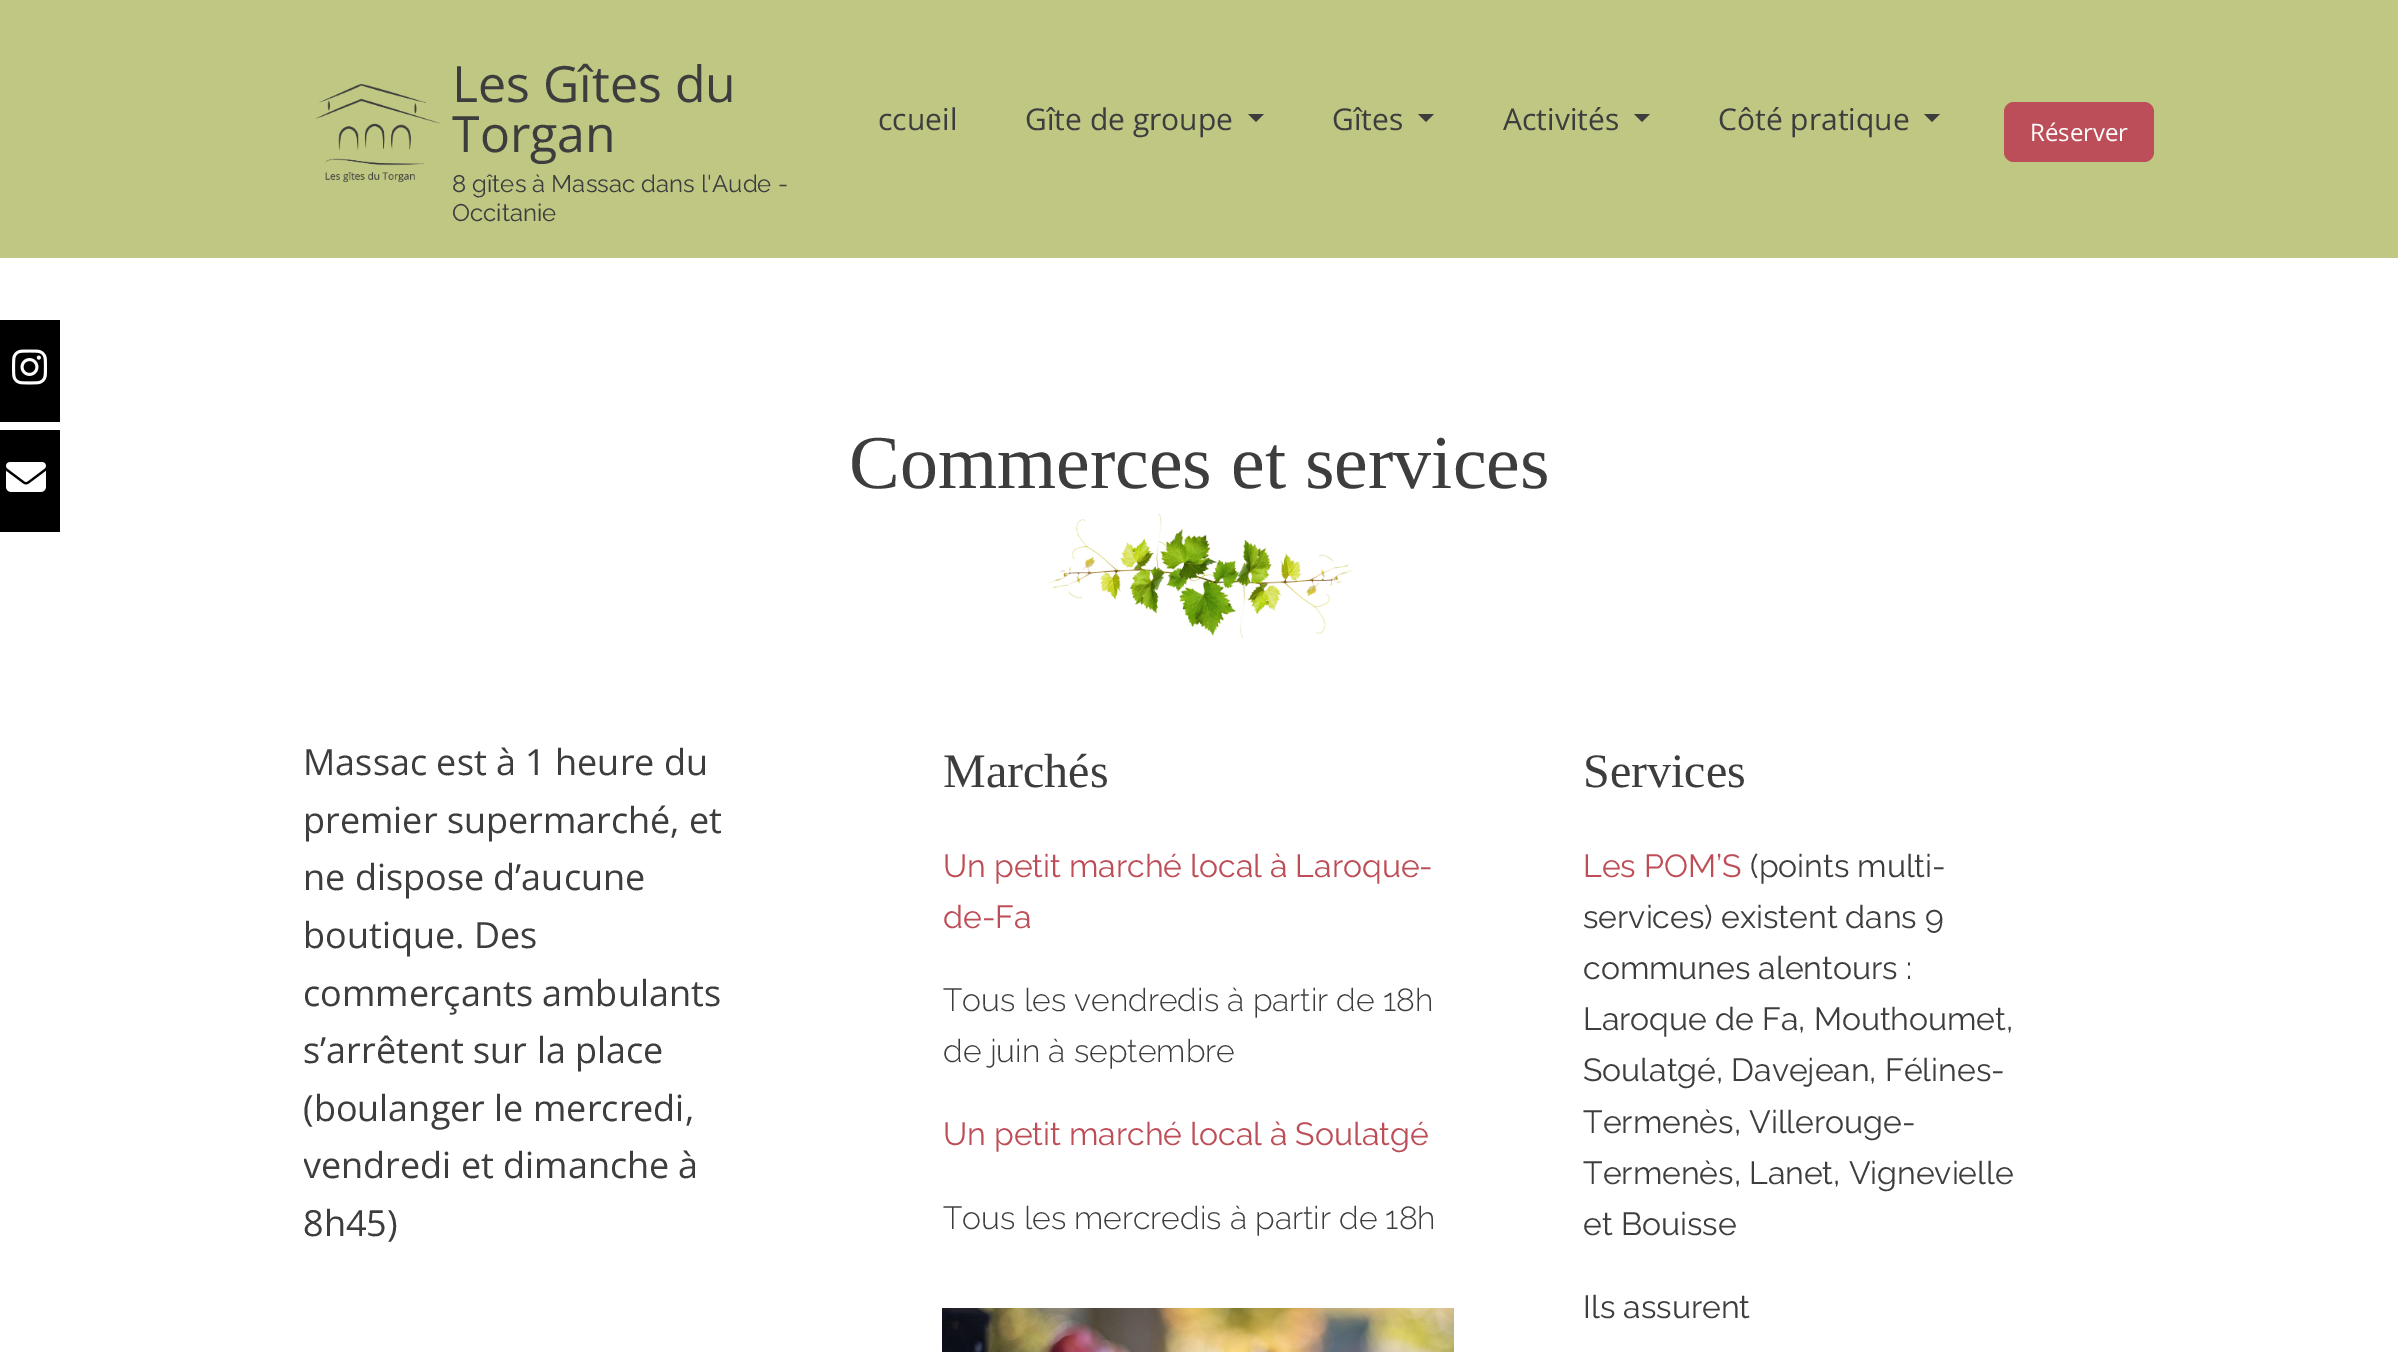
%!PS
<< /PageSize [2398 1352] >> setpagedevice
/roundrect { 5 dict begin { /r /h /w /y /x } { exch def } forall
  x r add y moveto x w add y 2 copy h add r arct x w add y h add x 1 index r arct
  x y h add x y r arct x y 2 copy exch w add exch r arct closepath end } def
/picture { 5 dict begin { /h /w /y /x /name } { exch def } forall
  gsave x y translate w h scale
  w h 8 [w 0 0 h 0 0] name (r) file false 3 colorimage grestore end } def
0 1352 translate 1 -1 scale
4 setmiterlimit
1 setgray
0 0 2398 1352 rectfill
0.753 0.78 0.514 setrgbcolor
0 0 2398 258 rectfill
(img1.rgb) 316 84 124 98 picture
/OpenSans-Regular [50 0 0 -50 0 0] selectfont
0.239 setgray
452 102 moveto (Les Gîtes du) show
452 152 moveto (Torgan) show
/Raleway-Thin [24 0 0 -24 0 0] selectfont
452 192 moveto (8 gîtes à Massac dans l'Aude -) show
452 221 moveto (Occitanie) show
/OpenSans-Regular [30 0 0 -30 0 0] selectfont
878 130 moveto (ccueil) show
1025 130 moveto (Gîte de groupe) show
newpath 1248 114 moveto 1264 114 lineto 1256 122 lineto closepath fill
1332 130 moveto (Gîtes) show
newpath 1418 114 moveto 1434 114 lineto 1426 122 lineto closepath fill
1503 130 moveto (Activités) show
newpath 1634 114 moveto 1650 114 lineto 1642 122 lineto closepath fill
1718 130 moveto (Côté pratique) show
newpath 1924 114 moveto 1940 114 lineto 1932 122 lineto closepath fill
0.733 0.306 0.345 setrgbcolor
2004 102 150 60 10 roundrect fill
/OpenSans-Regular [24 0 0 -24 0 0] selectfont
1 setgray
2030 141 moveto (Réserver) show
0 setgray
0 320 60 102 rectfill
(img2.rgb) 12 349 35 36 picture
0 430 60 102 rectfill
(img3.rgb) 6 462 40 30 picture
/LiberationSerif-Regular [76 0 0 -76 0 0] selectfont
0.239 setgray
849 488 moveto (Commerces et services) show
(img4.rgb) 1047 513 307 126 picture
/OpenSans-Regular [36 0 0 -36 0 0] selectfont
303 775 moveto (Massac est à 1 heure du) show
303 833 moveto (premier supermarché, et) show
303 890 moveto (ne dispose d’aucune) show
303 948 moveto (boutique. Des) show
303 1006 moveto (commerçants ambulants) show
303 1063 moveto (s’arrêtent sur la place) show
303 1121 moveto (\(boulanger le mercredi,) show
gsave
304 724 446 608 rectclip
303 1178 moveto (vendredi et dimanche à) show
grestore
303 1236 moveto (8h45\)) show
/LiberationSerif-Regular [48 0 0 -48 0 0] selectfont
943 787 moveto (Marchés) show
/Raleway-Thin [32 0 0 -32 0 0] selectfont
0.741 0.302 0.337 setrgbcolor
943 877 moveto (Un petit marché local à Laroque-) show
943 928 moveto (de-Fa) show
/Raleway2-Thin [32 0 0 -32 0 0] selectfont
0.239 setgray
943 1011 moveto (Tous les vendredis à partir de 18h) show
943 1062 moveto (de juin à septembre) show
/Raleway-Thin [32 0 0 -32 0 0] selectfont
0.741 0.302 0.337 setrgbcolor
943 1145 moveto (Un petit marché local à Soulatgé) show
/Raleway2-Thin [32 0 0 -32 0 0] selectfont
0.239 setgray
943 1229 moveto (Tous les mercredis à partir de 18h) show
(img5.rgb) 942 1308 512 44 picture
/LiberationSerif-Regular [48 0 0 -48 0 0] selectfont
1583 787 moveto (Services) show
/Raleway-Thin [32 0 0 -32 0 0] selectfont
0.741 0.302 0.337 setrgbcolor
1583 877 moveto (Les POM’S) show
0.239 setgray
1750 877 moveto (\(points multi-) show
1583 928 moveto (services\) existent dans 9) show
1583 979 moveto (communes alentours :) show
1583 1030 moveto (Laroque de Fa, Mouthoumet,) show
1583 1081 moveto (Soulatgé, Davejean, Félines-) show
1583 1133 moveto (Termenès, Villerouge-) show
1583 1184 moveto (Termenès, Lanet, Vignevielle) show
1583 1235 moveto (et Bouisse) show
1583 1318 moveto (Ils assurent) show
showpage
